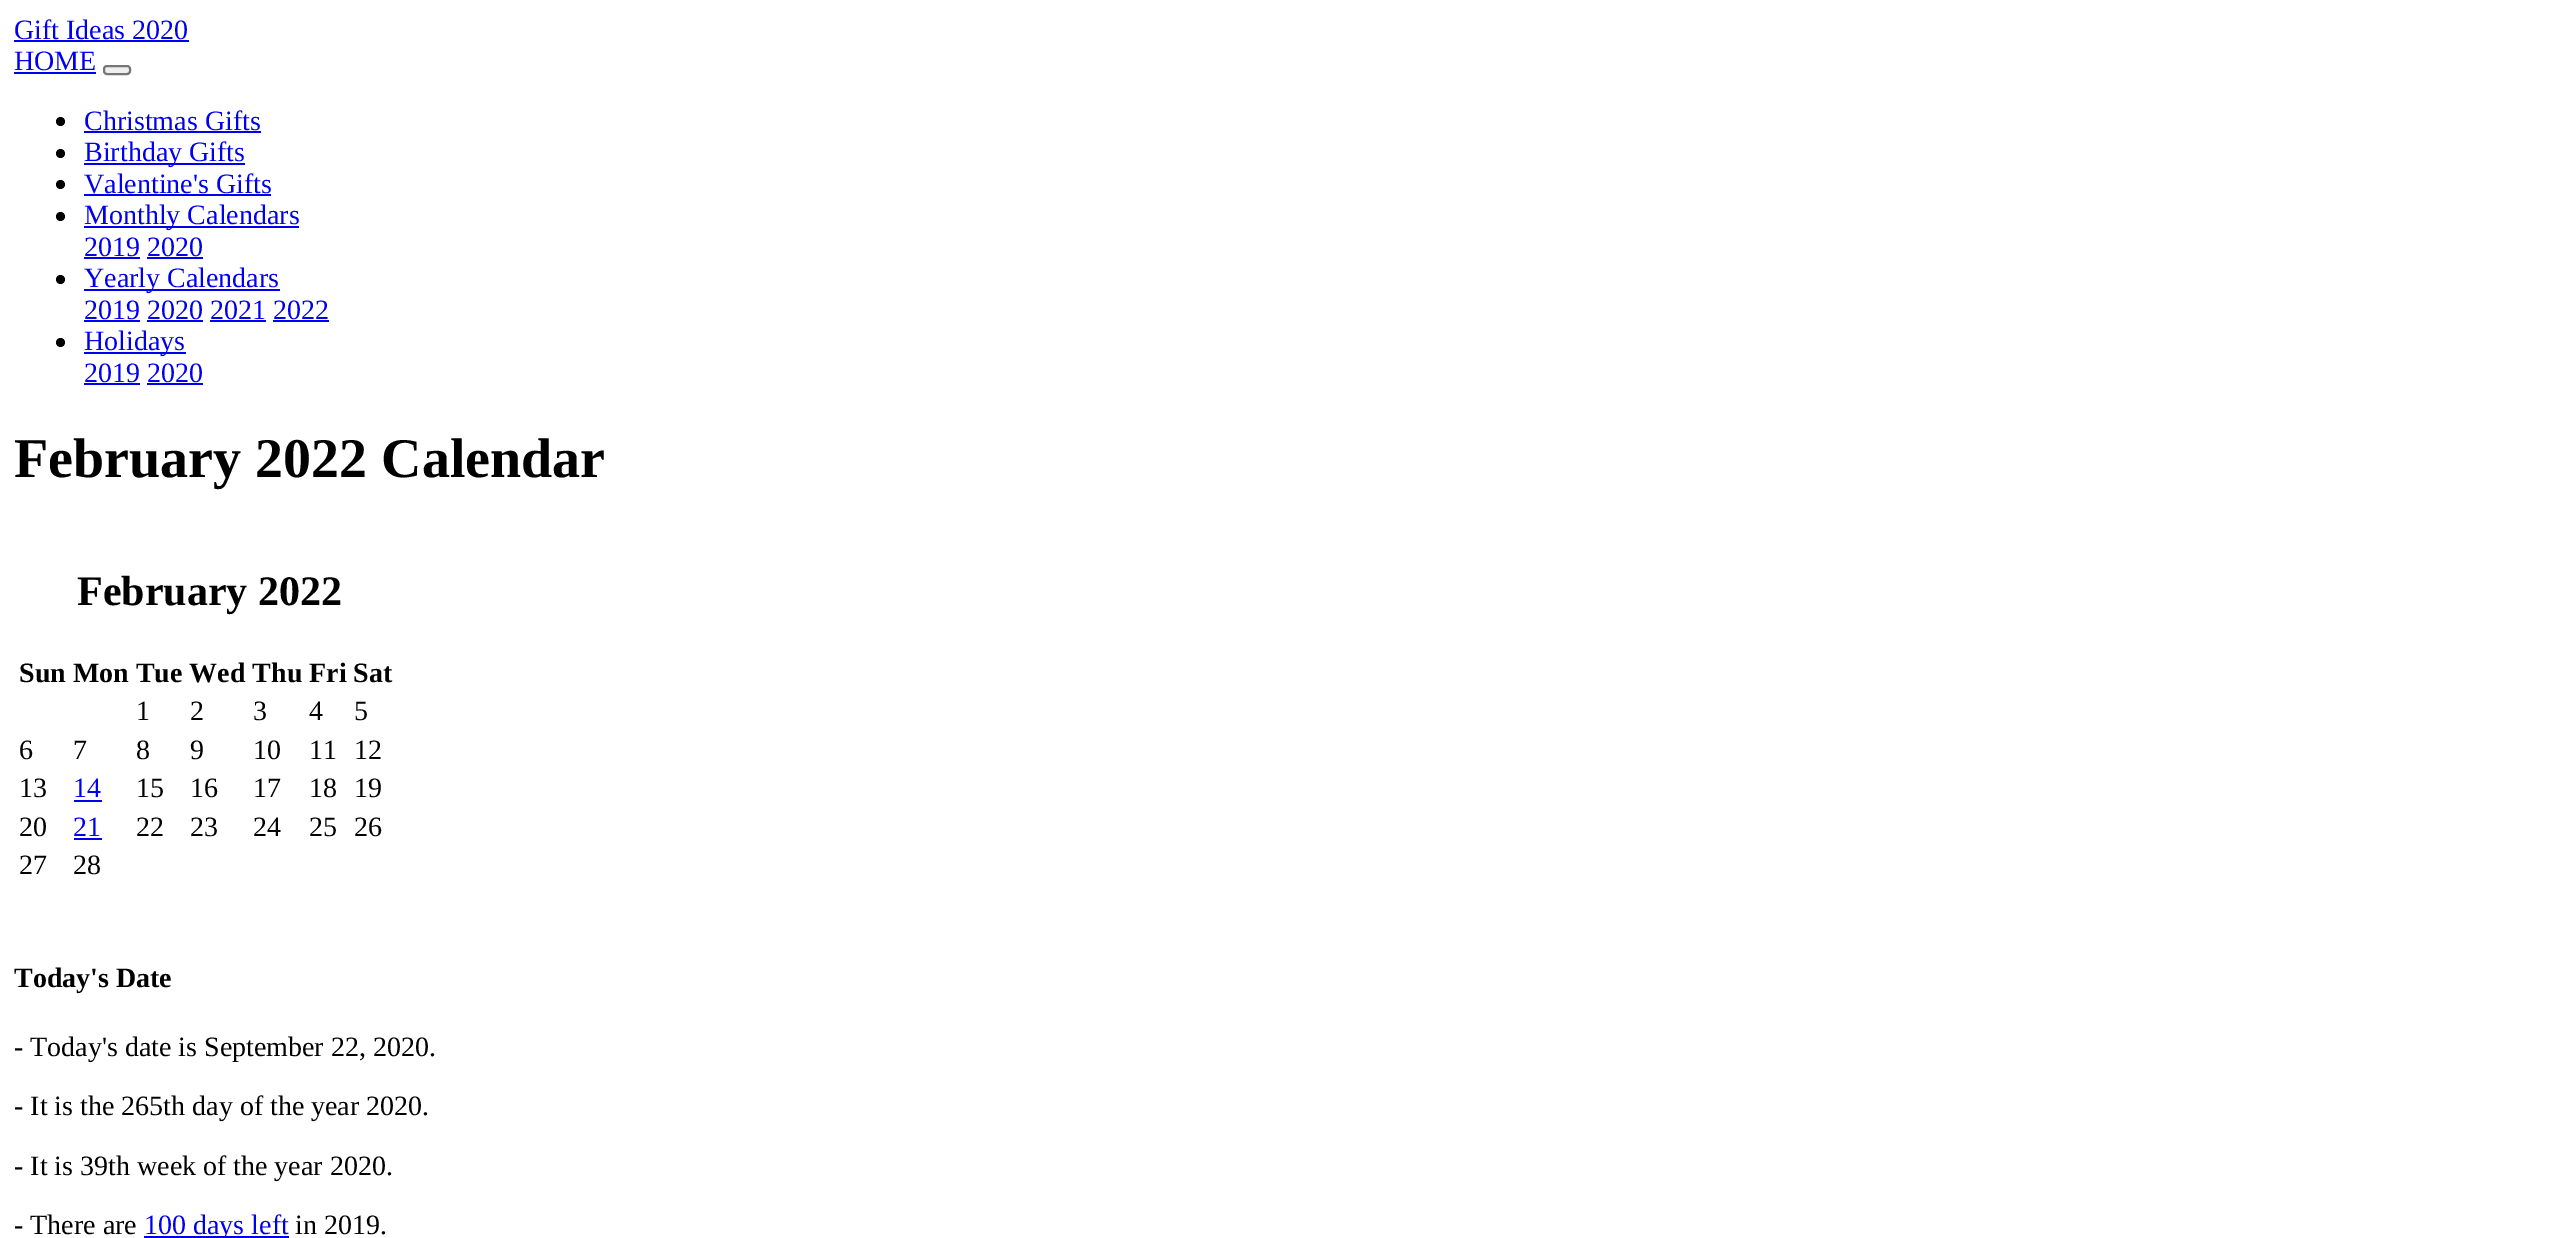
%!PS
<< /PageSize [2549 1238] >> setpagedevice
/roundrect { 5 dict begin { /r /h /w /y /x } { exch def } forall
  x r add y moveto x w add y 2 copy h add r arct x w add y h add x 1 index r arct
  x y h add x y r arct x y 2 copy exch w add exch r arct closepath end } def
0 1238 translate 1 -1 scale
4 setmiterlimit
1 setgray
0 0 2549 1238 rectfill
/LiberationSerif-Regular [28 0 0 -28 0 0] selectfont
0 0 0.933 setrgbcolor
14 39 moveto (Gift Ideas 2020) show
14 40 175 2 rectfill
14 70 moveto (HOME) show
14 72 82 2 rectfill
0.937 setgray
104 66 26 8 3 roundrect gsave fill grestore
0.463 setgray
2 setlinewidth
stroke
0 setgray
newpath 60.5 121.5 4.5 0 360 arc closepath fill
0 0 0.933 setrgbcolor
84 130 moveto (Christmas Gifts) show
84 131 177 2 rectfill
0 setgray
newpath 60.5 153.5 4.5 0 360 arc closepath fill
0 0 0.933 setrgbcolor
84 163 161 2 rectfill
84 161 moveto (Birthday Gifts) show
0 setgray
newpath 60.5 184.5 4.5 0 360 arc closepath fill
0 0 0.933 setrgbcolor
84 193 moveto (Valentine's Gifts) show
84 194 187 2 rectfill
0 setgray
newpath 60.5 216.5 4.5 0 360 arc closepath fill
0 0 0.933 setrgbcolor
84 226 215 2 rectfill
84 224 moveto (Monthly Calendars) show
84 256 moveto (2019 2020) show
84 257 56 2 rectfill
147 257 56 2 rectfill
0 setgray
newpath 60.5 279.5 4.5 0 360 arc closepath fill
0 0 0.933 setrgbcolor
84 289 196 2 rectfill
84 287 moveto (Yearly Calendars) show
84 319 moveto (2019 2020 2021 2022) show
84 320 56 2 rectfill
147 320 56 2 rectfill
210 320 56 2 rectfill
273 320 56 2 rectfill
0 setgray
newpath 60.5 342.5 4.5 0 360 arc closepath fill
0 0 0.933 setrgbcolor
84 352 102 2 rectfill
84 350 moveto (Holidays) show
84 382 moveto (2019 2020) show
84 383 56 2 rectfill
147 383 56 2 rectfill
/LiberationSerif-Bold [56 0 0 -56 0 0] selectfont
0 setgray
14 477 moveto (February 2022 Calendar) show
/LiberationSerif-Bold [42 0 0 -42 0 0] selectfont
77 605 moveto (February 2022) show
/LiberationSerif-Bold [28 0 0 -28 0 0] selectfont
19 682 moveto (Sun Mon Tue Wed Thu Fri Sat) show
/LiberationSerif-Regular [28 0 0 -28 0 0] selectfont
136 720 moveto (1) show
190 720 moveto (2) show
253 720 moveto (3) show
309 720 moveto (4) show
354 720 moveto (5) show
19 759 moveto (6) show
73 759 moveto (7) show
136 759 moveto (8) show
190 759 moveto (9) show
253 759 moveto (10) show
309 759 moveto (11) show
354 759 moveto (12) show
19 797 moveto (13) show
0 0 0.933 setrgbcolor
73 797 moveto (14) show
74 800 28 2 rectfill
0 setgray
136 797 moveto (15) show
190 797 moveto (16) show
253 797 moveto (17) show
309 797 moveto (18) show
354 797 moveto (19) show
19 836 moveto (20) show
0 0 0.933 setrgbcolor
73 836 moveto (21) show
74 838 28 2 rectfill
0 setgray
136 836 moveto (22) show
190 836 moveto (23) show
253 836 moveto (24) show
309 836 moveto (25) show
354 836 moveto (26) show
19 874 moveto (27) show
73 874 moveto (28) show
/LiberationSerif-Bold [28 0 0 -28 0 0] selectfont
14 987 moveto (Today's Date) show
/LiberationSerif-Regular [28 0 0 -28 0 0] selectfont
14 1056 moveto (- Today's date is September 22, 2020.) show
14 1115 moveto (- It is the 265th day of the year 2020.) show
14 1175 moveto (- It is 39th week of the year 2020.) show
14 1234 moveto (- There are) show
0 0 0.933 setrgbcolor
144 1236 145 2 rectfill
144 1234 moveto (100 days left) show
0 setgray
295 1234 moveto (in 2019.) show
showpage
